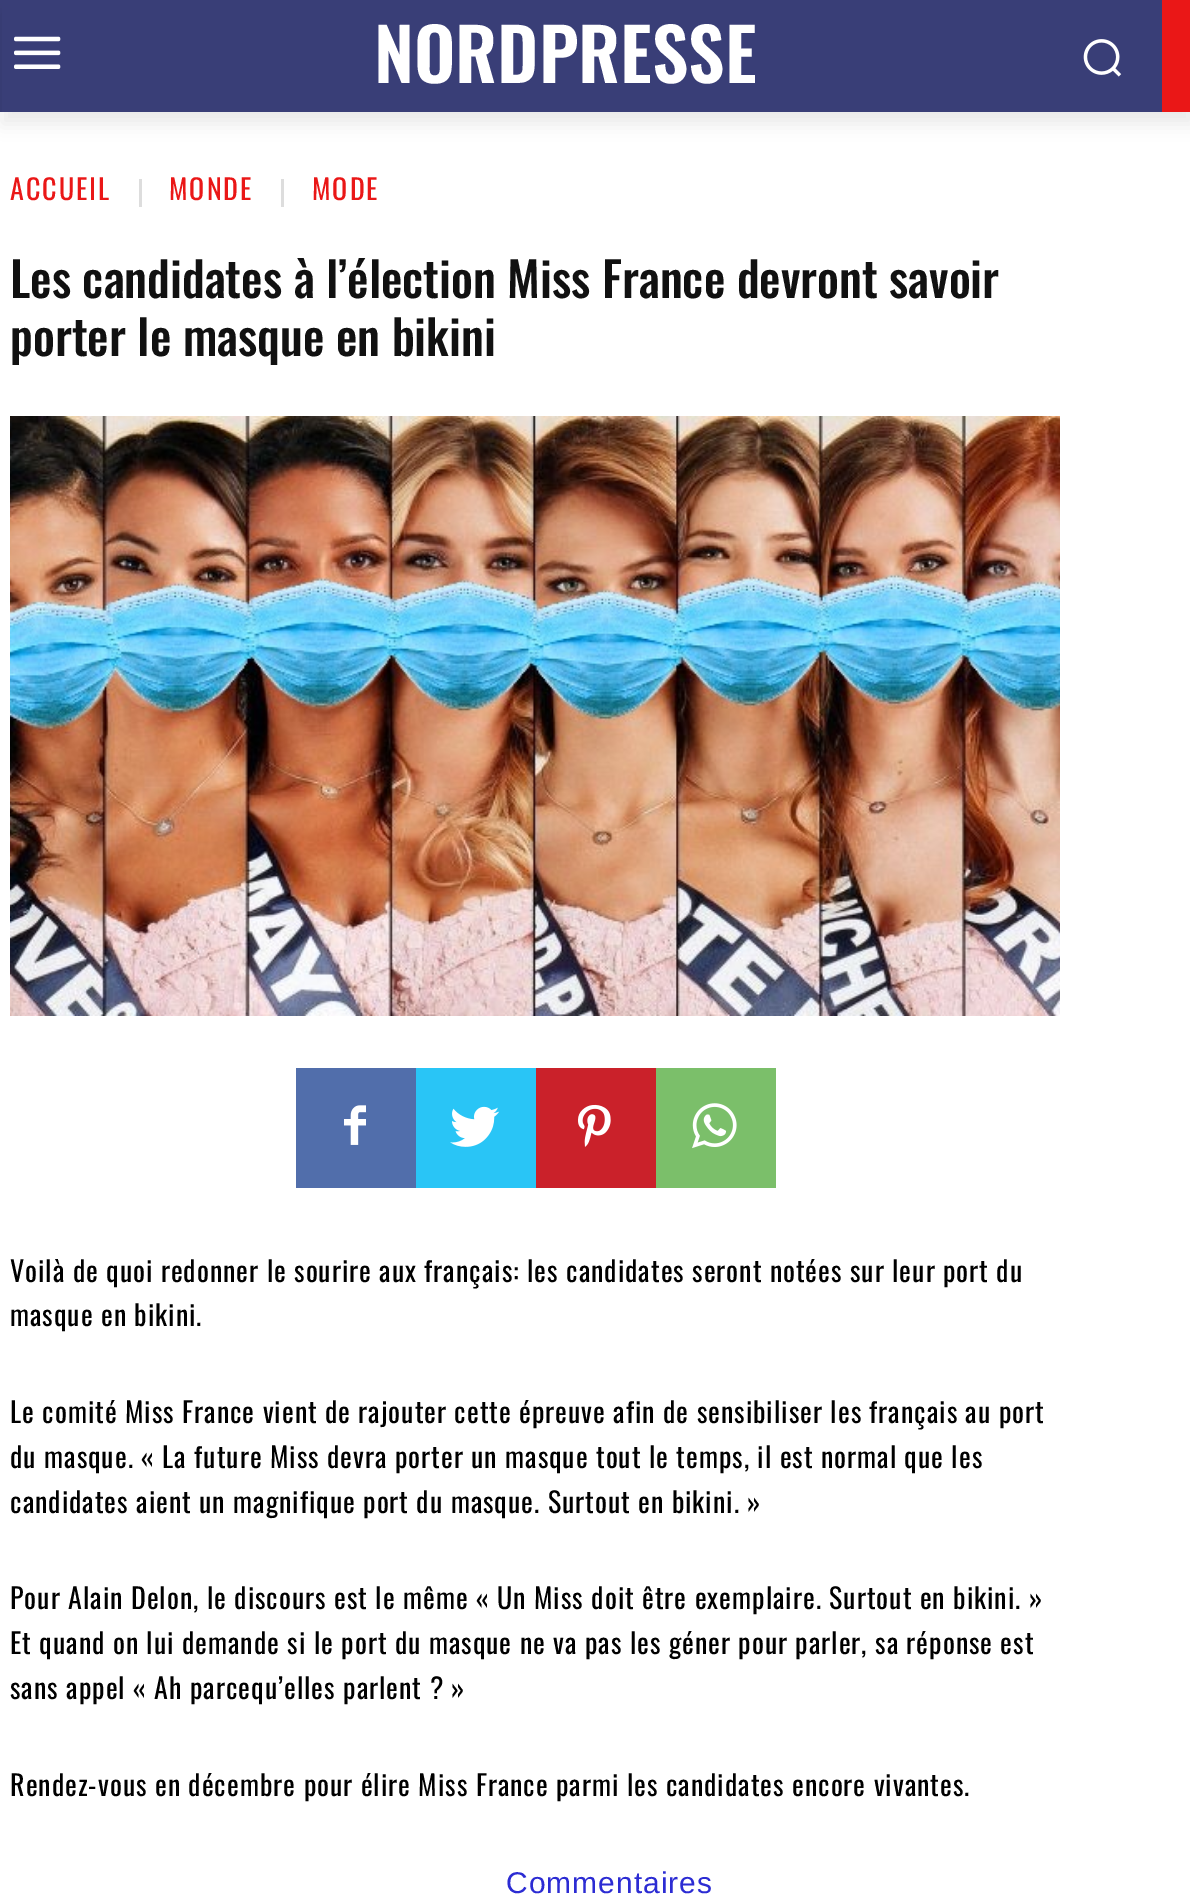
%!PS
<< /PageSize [1190 1902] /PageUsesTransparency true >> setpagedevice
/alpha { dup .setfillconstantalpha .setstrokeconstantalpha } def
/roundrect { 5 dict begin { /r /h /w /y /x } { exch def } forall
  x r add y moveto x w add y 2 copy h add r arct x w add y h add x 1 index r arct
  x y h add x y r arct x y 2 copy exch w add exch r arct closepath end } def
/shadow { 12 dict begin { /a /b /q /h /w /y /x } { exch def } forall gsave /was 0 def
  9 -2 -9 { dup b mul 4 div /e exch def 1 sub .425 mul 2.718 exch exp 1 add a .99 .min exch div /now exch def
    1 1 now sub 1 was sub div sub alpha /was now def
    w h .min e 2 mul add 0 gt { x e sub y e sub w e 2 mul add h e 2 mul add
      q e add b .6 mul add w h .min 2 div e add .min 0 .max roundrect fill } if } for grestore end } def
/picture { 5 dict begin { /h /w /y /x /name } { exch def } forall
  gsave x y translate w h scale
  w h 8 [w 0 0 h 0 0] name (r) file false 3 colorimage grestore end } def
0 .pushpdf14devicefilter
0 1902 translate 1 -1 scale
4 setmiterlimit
1 setgray
0 0 1190 1902 rectfill
0.224 0.243 0.467 setrgbcolor
0 0 1162 112 rectfill
(img1.rgb) 14 36 47 33 picture
(img2.rgb) 1083 39 39 38 picture
0.918 0.09 0.09 setrgbcolor
1162 0 28 112 rectfill
gsave
newpath 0 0 moveto 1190 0 lineto 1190 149 lineto 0 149 lineto closepath 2 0 moveto 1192 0 lineto 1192 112 lineto 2 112 lineto closepath eoclip newpath
0 setgray
2 12 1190 112 0 8 0.08 shadow
grestore
/Oswald-SemiBold [72 0 0 -72 0 0] selectfont
1 setgray
374 83 moveto (NORDPRESSE) show
/Oswald-Regular [28 0 0 -28 0 0] selectfont
0.918 0.09 0.09 setrgbcolor
10 200 moveto 2 0 (ACCUEIL) ashow
0.867 setgray
139 179 3 28 rectfill
0.918 0.09 0.09 setrgbcolor
169 200 moveto 2 0 (MONDE) ashow
0.867 setgray
281 179 3 28 rectfill
0.918 0.09 0.09 setrgbcolor
312 200 moveto 2 0 (MODE) ashow
/Oswald-Medium [48 0 0 -48 0 0] selectfont
0.067 setgray
10 298 moveto (Les candidates à l’élection Miss France devront savoir) show
10 356 moveto (porter le masque en bikini) show
(img3.rgb) 10 416 1050 600 picture
0.318 0.431 0.671 setrgbcolor
296 1068 120 120 rectfill
(img4.rgb) 344 1105 22 40 picture
0.161 0.773 0.965 setrgbcolor
416 1068 120 120 rectfill
(img5.rgb) 450 1106 50 41 picture
0.792 0.129 0.165 setrgbcolor
536 1068 120 120 rectfill
(img6.rgb) 578 1104 33 43 picture
0.482 0.749 0.416 setrgbcolor
656 1068 120 120 rectfill
(img7.rgb) 692 1103 45 46 picture
/Oswald-Regular [28 0 0 -28 0 0] selectfont
0 setgray
10 1282 moveto 1 0 (Voilà de quoi redonner le sourire aux français: les candidates seront notées sur leur port du) ashow
10 1326 moveto 1 0 (masque en bikini.) ashow
10 1423 moveto 1 0 (Le comité Miss France vient de rajouter cette épreuve afin de sensibiliser les français au port) ashow
10 1468 moveto 1 0 (du masque. « La future Miss devra porter un masque tout le temps, il est normal que les) ashow
10 1513 moveto 1 0 (candidates aient un magnifique port du masque. Surtout en bikini. ») ashow
10 1609 moveto 1 0 (Pour Alain Delon, le discours est le même « Un Miss doit être exemplaire. Surtout en bikini. ») ashow
10 1654 moveto 1 0 (Et quand on lui demande si le port du masque ne va pas les géner pour parler, sa réponse est) ashow
10 1699 moveto 1 0 (sans appel « Ah parcequ’elles parlent ? ») ashow
10 1796 moveto 1 0 (Rendez-vous en décembre pour élire Miss France parmi les candidates encore vivantes.) ashow
/LiberationSans-Regular [30 0 0 -30 0 0] selectfont
0.173 0.173 0.827 setrgbcolor
506 1893 moveto 1 0 (Commentaires) ashow
.poppdf14devicefilter showpage
